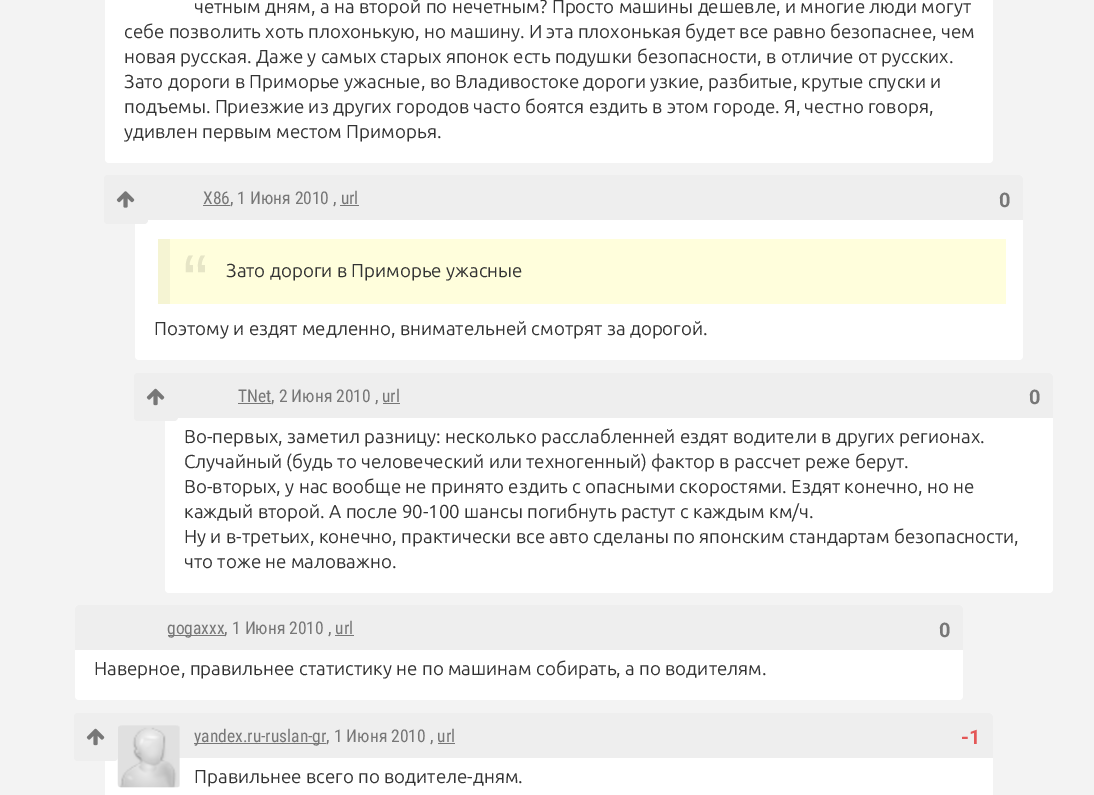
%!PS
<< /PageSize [1094 795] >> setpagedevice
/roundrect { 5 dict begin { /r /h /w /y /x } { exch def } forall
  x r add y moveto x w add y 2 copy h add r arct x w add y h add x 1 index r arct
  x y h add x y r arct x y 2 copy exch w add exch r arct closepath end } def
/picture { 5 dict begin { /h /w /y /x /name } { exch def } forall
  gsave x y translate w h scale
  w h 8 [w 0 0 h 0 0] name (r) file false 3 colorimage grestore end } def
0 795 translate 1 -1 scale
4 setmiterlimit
0.953 setgray
0 0 1094 795 rectfill
1 setgray
105 -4 888 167 4 roundrect fill
/Ubuntu-Regular [18.75 0 0 -18.75 0 0] selectfont
0.2 setgray
194 13 moveto (четным дням, а на второй по нечетным? Просто машины дешевле, и многие люди могут) show
124 38 moveto (себе позволить хоть плохонькую, но машину. И эта плохонькая будет все равно безопаснее, чем) show
124 63 moveto (новая русская. Даже у самых старых японок есть подушки безопасности, в отличие от русских.) show
124 88 moveto (Зато дороги в Приморье ужасные, во Владивостоке дороги узкие, разбитые, крутые спуски и) show
124 113 moveto (подъемы. Приезжие из других городов часто боятся ездить в этом городе. Я, честно говоря,) show
124 138 moveto (удивлен первым местом Приморья.) show
1 setgray
135 175 888 185 4 roundrect fill
0.933 setgray
newpath 139 175 moveto 1019 175 lineto 1021 175 1023 177 1023 179 curveto 1023 220 lineto 135 220 lineto 135 179 lineto 135 177 137 175 139 175 curveto closepath fill
104 175 44 49 4 roundrect fill
(img1.rgb) 116 191 19 17 picture
0.467 setgray
203 205 27 1 rectfill
/RobotoCondensed-Regular [17.5 0 0 -17.5 0 0] selectfont
203 204 moveto (X86, 1 Июня 2010 , url) show
/Roboto-Bold [20 0 0 -20 0 0] selectfont
999 207 moveto (0) show
340 205 19 1 rectfill
1 0.996 0.863 setrgbcolor
170 239 836 65 rectfill
0.961 0.957 0.827 setrgbcolor
158 239 12 65 rectfill
/LiberationSans-Regular [75 0 0 -75 0 0] selectfont
0.902 0.898 0.776 setrgbcolor
183 307 moveto (“) show
/Ubuntu-Regular [18.75 0 0 -18.75 0 0] selectfont
0.2 setgray
226 277 moveto (Зато дороги в Приморье ужасные) show
154 335 moveto (Поэтому и ездят медленно, внимательней смотрят за дорогой.) show
1 setgray
165 373 888 220 4 roundrect fill
0.933 setgray
newpath 169 373 moveto 1049 373 lineto 1051 373 1053 375 1053 377 curveto 1053 418 lineto 165 418 lineto 165 377 lineto 165 375 167 373 169 373 curveto closepath fill
134 373 44 48 4 roundrect fill
(img2.rgb) 146 388 19 18 picture
0.467 setgray
238 403 33 1 rectfill
/RobotoCondensed-Regular [17.5 0 0 -17.5 0 0] selectfont
238 402 moveto (TNet, 2 Июня 2010 , url) show
/Roboto-Bold [20 0 0 -20 0 0] selectfont
1029 404 moveto (0) show
383 403 17 1 rectfill
/Ubuntu-Regular [18.75 0 0 -18.75 0 0] selectfont
0.2 setgray
184 443 moveto (Во-первых, заметил разницу: несколько расслабленней ездят водители в других регионах.) show
184 468 moveto (Случайный \(будь то человеческий или техногенный\) фактор в рассчет реже берут.) show
184 493 moveto (Во-вторых, у нас вообще не принято ездить с опасными скоростями. Ездят конечно, но не) show
184 518 moveto (каждый второй. А после 90-100 шансы погибнуть растут с каждым км/ч.) show
184 543 moveto (Ну и в-третьих, конечно, практически все авто сделаны по японским стандартам безопасности,) show
184 568 moveto (что тоже не маловажно.) show
1 setgray
75 605 888 95 4 roundrect fill
0.933 setgray
newpath 79 605 moveto 959 605 lineto 961 605 963 607 963 609 curveto 963 650 lineto 75 650 lineto 75 609 lineto 75 607 77 605 79 605 curveto closepath fill
0.467 setgray
168 635 57 1 rectfill
/RobotoCondensed-Regular [17.5 0 0 -17.5 0 0] selectfont
167 634 moveto (gogaxxx, 1 Июня 2010 , url) show
/Roboto-Bold [20 0 0 -20 0 0] selectfont
939 637 moveto (0) show
335 635 19 1 rectfill
/Ubuntu-Regular [18.75 0 0 -18.75 0 0] selectfont
0.2 setgray
94 675 moveto (Наверное, правильнее статистику не по машинам собирать, а по водителям.) show
1 setgray
105 713 888 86 4 roundrect fill
0.933 setgray
newpath 109 713 moveto 989 713 lineto 991 713 993 715 993 717 curveto 993 758 lineto 105 758 lineto 105 717 lineto 105 715 107 713 109 713 curveto closepath fill
(img3.rgb) 117 725 63 63 picture
74 713 44 48 4 roundrect fill
(img2.rgb) 86 728 19 18 picture
0.467 setgray
194 743 132 1 rectfill
/RobotoCondensed-Regular [17.5 0 0 -17.5 0 0] selectfont
194 742 moveto (yandex.ru-ruslan-gr, 1 Июня 2010 , url) show
/Roboto-Bold [20 0 0 -20 0 0] selectfont
0.894 0.341 0.341 setrgbcolor
961 744 moveto (-1) show
0.467 setgray
438 743 17 1 rectfill
/Ubuntu-Regular [18.75 0 0 -18.75 0 0] selectfont
0.2 setgray
194 783 moveto (Правильнее всего по водителе-дням.) show
showpage
